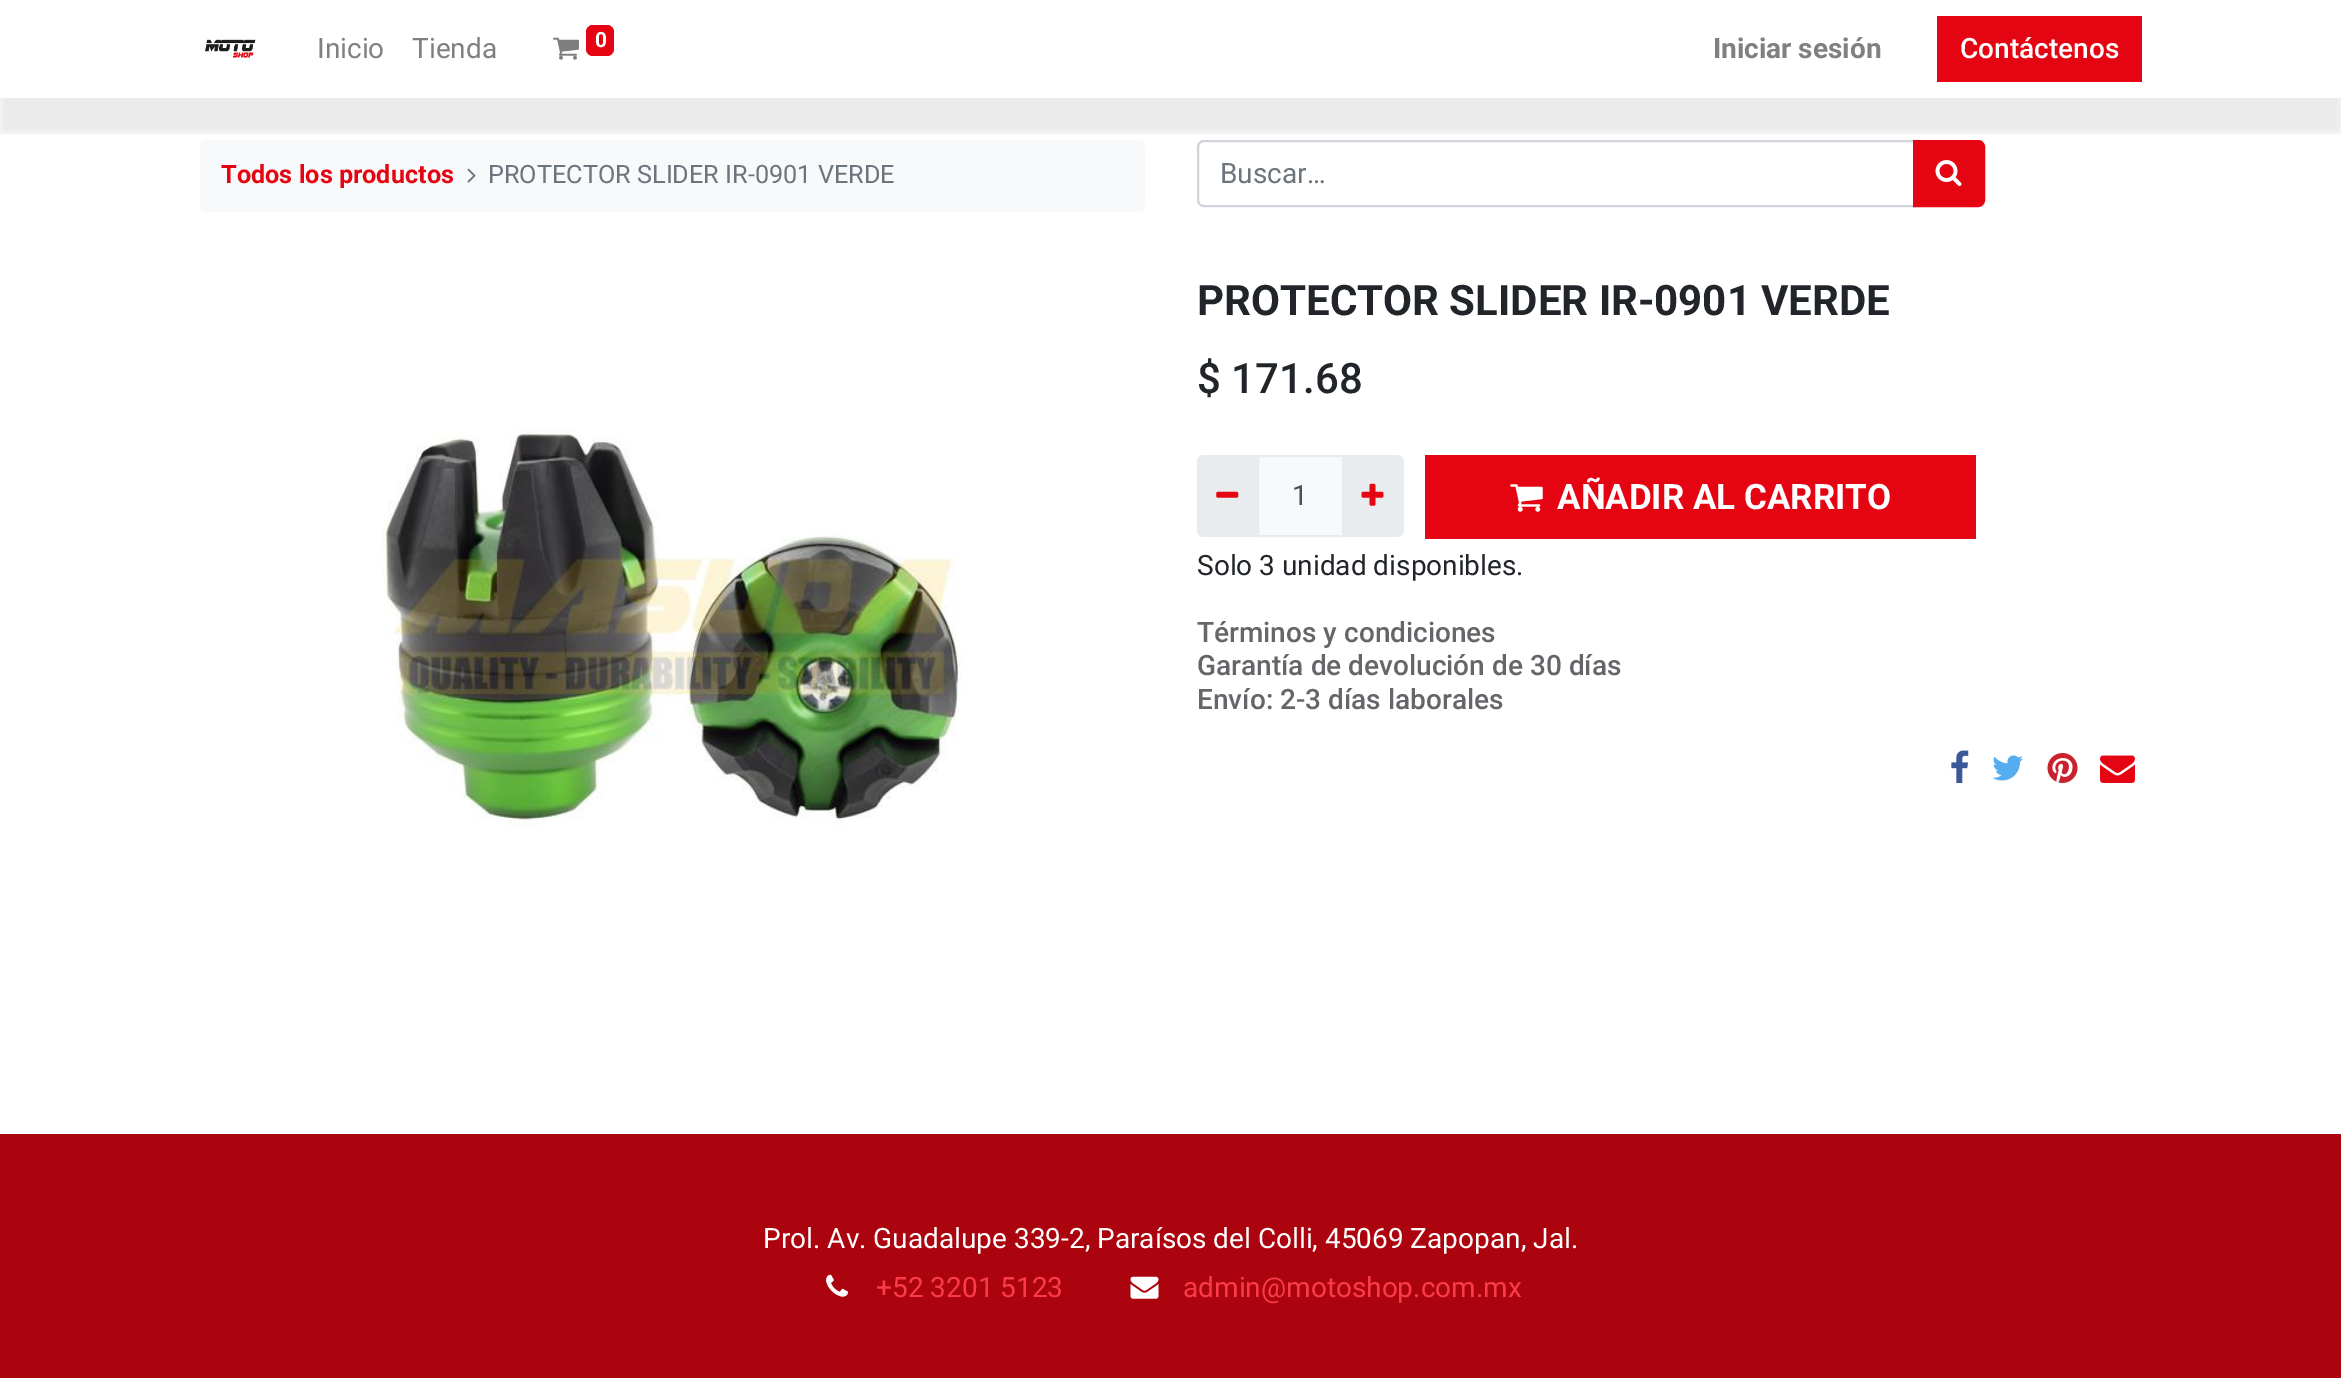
%!PS
<< /PageSize [2341 1378] /PageUsesTransparency true >> setpagedevice
/alpha { dup .setfillconstantalpha .setstrokeconstantalpha } def
/roundrect { 5 dict begin { /r /h /w /y /x } { exch def } forall
  x r add y moveto x w add y 2 copy h add r arct x w add y h add x 1 index r arct
  x y h add x y r arct x y 2 copy exch w add exch r arct closepath end } def
/shadow { 12 dict begin { /a /b /q /h /w /y /x } { exch def } forall gsave /was 0 def
  9 -2 -9 { dup b mul 4 div /e exch def 1 sub .425 mul 2.718 exch exp 1 add a .99 .min exch div /now exch def
    1 1 now sub 1 was sub div sub alpha /was now def
    w h .min e 2 mul add 0 gt { x e sub y e sub w e 2 mul add h e 2 mul add
      q e add b .6 mul add w h .min 2 div e add .min 0 .max roundrect fill } if } for grestore end } def
/picture { 5 dict begin { /h /w /y /x /name } { exch def } forall
  gsave x y translate w h scale
  w h 8 [w 0 0 h 0 0] name (r) file false 3 colorimage grestore end } def
0 .pushpdf14devicefilter
0 1378 translate 1 -1 scale
4 setmiterlimit
1 setgray
0 0 2341 1378 rectfill
0.973 0.976 0.98 setrgbcolor
200 140 945 72 7 roundrect fill
0.808 0.831 0.855 setrgbcolor
2 setlinewidth
newpath 1204 141 moveto 1914 141 lineto 1914 206 lineto 1204 206 lineto 1200.5 206 1198 203.5 1198 200 curveto 1198 147 lineto 1198 143.5 1200.5 141 1204 141 curveto closepath stroke
0.898 0.02 0.071 setrgbcolor
newpath 1914 141 moveto 1978 141 lineto 1981.5 141 1984 143.5 1984 147 curveto 1984 200 lineto 1984 203.5 1981.5 206 1978 206 curveto 1914 206 lineto closepath gsave fill grestore
stroke
gsave
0 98 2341 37 rectclip
0 setgray
0 35 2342 98 0 3.5 0.07 shadow
grestore
(img1.rgb) 205 39 51 19 picture
/Roboto-Regular [28 0 0 -28 0 0] selectfont
0.502 setgray
317 58 moveto (Inicio) show
412 58 moveto (Tienda) show
(img2.rgb) 553 37 26 23 picture
0.898 0.02 0.071 setrgbcolor
586 25 28 31 7 roundrect fill
/Roboto-Bold [21 0 0 -21 0 0] selectfont
1 setgray
595 47 moveto (0) show
/Roboto-Bold [28 0 0 -28 0 0] selectfont
0.502 setgray
1713 58 moveto (Iniciar sesión) show
0.898 0.02 0.071 setrgbcolor
1937 16 205 66 rectfill
/Roboto-Medium [28 0 0 -28 0 0] selectfont
1 setgray
1960 58 moveto (Contáctenos) show
/Roboto-Bold [25.25 0 0 -25.25 0 0] selectfont
0.898 0.02 0.071 setrgbcolor
221 183 moveto (Todos los productos) show
(img3.rgb) 467 168 9 15 picture
/Roboto-Regular [25.25 0 0 -25.25 0 0] selectfont
0.424 0.459 0.49 setrgbcolor
488 183 moveto (PROTECTOR SLIDER IR-0901 VERDE) show
/Roboto-Regular [28 0 0 -28 0 0] selectfont
1220 183 moveto (Buscar…) show
(img4.rgb) 1935 160 27 26 picture
(img5.rgb) 382 426 580 401 picture
/Roboto-Bold [42 0 0 -42 0 0] selectfont
0.129 0.145 0.161 setrgbcolor
1197 315 moveto (PROTECTOR SLIDER IR-0901 VERDE) show
/Roboto-Medium [42 0 0 -42 0 0] selectfont
1197 393 moveto ($ 171.68) show
0.973 0.976 0.98 setrgbcolor
newpath 1258 456 moveto 1343 456 lineto 1343 536 lineto 1258 536 lineto closepath gsave fill grestore
0.914 0.925 0.937 setrgbcolor
stroke
newpath 1204 455 moveto 1258 455 lineto 1258 537 lineto 1204 537 lineto 1200 537 1197 534 1197 530 curveto 1197 462 lineto 1197 458 1200 455 1204 455 curveto closepath fill
(img6.rgb) 1216 491 23 7 picture
/Roboto-Regular [28 0 0 -28 0 0] selectfont
0.286 0.314 0.341 setrgbcolor
1292 505 moveto (1) show
0.914 0.925 0.937 setrgbcolor
newpath 1342 455 moveto 1397 455 lineto 1401 455 1404 458 1404 462 curveto 1404 530 lineto 1404 534 1401 537 1397 537 curveto 1342 537 lineto closepath fill
(img7.rgb) 1361 483 23 23 picture
0.898 0.02 0.071 setrgbcolor
1425 455 551 84 rectfill
(img8.rgb) 1510 484 33 28 picture
/Roboto-Bold [35 0 0 -35 0 0] selectfont
1 setgray
1557 509 moveto (AÑADIR AL CARRITO) show
/Roboto-Regular [28 0 0 -28 0 0] selectfont
0.129 0.145 0.161 setrgbcolor
1197 575 moveto (Solo 3 unidad disponibles.) show
/Roboto-Medium [28 0 0 -28 0 0] selectfont
0.392 0.4 0.412 setrgbcolor
1197 642 moveto (Términos y condiciones) show
1197 675 moveto (Garantía de devolución de 30 días) show
1197 709 moveto (Envío: 2-3 días laborales) show
(img9.rgb) 1951 750 18 33 picture
(img10.rgb) 1992 755 31 26 picture
(img11.rgb) 2047 753 31 30 picture
(img12.rgb) 2100 755 35 28 picture
0.675 0.016 0.055 setrgbcolor
0 1134 2341 244 rectfill
/Roboto-Regular [28 0 0 -28 0 0] selectfont
1 setgray
763 1248 moveto (Prol. Av. Guadalupe 339-2, Paraísos del Colli, 45069 Zapopan, Jal.) show
(img13.rgb) 826 1274 22 23 picture
0.984 0.235 0.278 setrgbcolor
876 1297 moveto (+52 3201 5123) show
(img14.rgb) 1130 1276 29 23 picture
1183 1297 moveto (admin@motoshop.com.mx) show
.poppdf14devicefilter showpage
